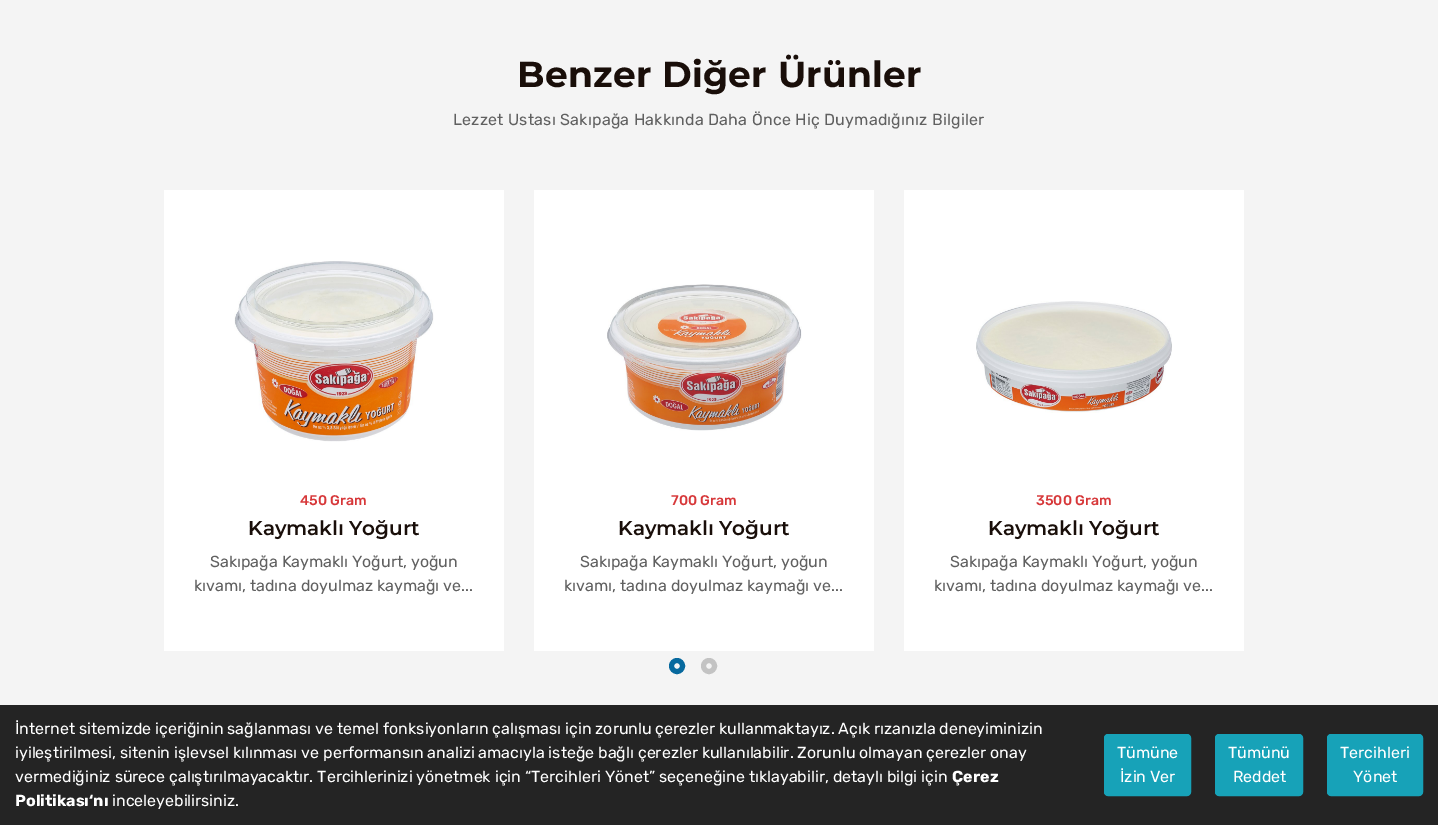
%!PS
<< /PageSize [1438 825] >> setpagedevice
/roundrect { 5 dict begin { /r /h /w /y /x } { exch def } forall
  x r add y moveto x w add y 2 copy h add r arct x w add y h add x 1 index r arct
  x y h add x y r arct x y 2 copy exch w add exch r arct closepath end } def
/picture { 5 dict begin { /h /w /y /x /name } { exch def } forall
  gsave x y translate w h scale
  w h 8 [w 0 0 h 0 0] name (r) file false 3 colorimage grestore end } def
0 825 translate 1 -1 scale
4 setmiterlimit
0.957 setgray
0 0 1438 825 rectfill
/Montserrat-Bold [36 0 0 -36 0 0] selectfont
0.098 0.055 0.035 setrgbcolor
517 87 moveto 0.25 0 (Benzer Diğer Ürünler) ashow
/Rubik-Regular [16 0 0 -16 0 0] selectfont
0.376 setgray
453 125 moveto 0.23 0 (Lezzet Ustası Sakıpağa Hakkında Daha Önce Hiç Duymadığınız Bilgiler) ashow
1 setgray
164 190 340 461 rectfill
(img1.rgb) 234 261 200 181 picture
/Rubik-Medium [14 0 0 -14 0 0] selectfont
0.843 0.216 0.224 setrgbcolor
300 505 moveto (450 Gram) show
/Montserrat-SemiBold [20 0 0 -20 0 0] selectfont
0.098 0.055 0.035 setrgbcolor
248 535 moveto (Kaymaklı Yoğurt) show
/Rubik-Regular [16 0 0 -16 0 0] selectfont
0.376 setgray
210 567 moveto (Sakıpağa Kaymaklı Yoğurt, yoğun) show
194 591 moveto (kıvamı, tadına doyulmaz kaymağı ve...) show
1 setgray
534 190 340 461 rectfill
(img2.rgb) 607 284 195 147 picture
/Rubik-Medium [14 0 0 -14 0 0] selectfont
0.843 0.216 0.224 setrgbcolor
671 505 moveto (700 Gram) show
/Montserrat-SemiBold [20 0 0 -20 0 0] selectfont
0.098 0.055 0.035 setrgbcolor
618 535 moveto (Kaymaklı Yoğurt) show
/Rubik-Regular [16 0 0 -16 0 0] selectfont
0.376 setgray
580 567 moveto (Sakıpağa Kaymaklı Yoğurt, yoğun) show
564 591 moveto (kıvamı, tadına doyulmaz kaymağı ve...) show
1 setgray
904 190 340 461 rectfill
(img3.rgb) 976 301 196 112 picture
/Rubik-Medium [14 0 0 -14 0 0] selectfont
0.843 0.216 0.224 setrgbcolor
1036 505 moveto (3500 Gram) show
/Montserrat-SemiBold [20 0 0 -20 0 0] selectfont
0.098 0.055 0.035 setrgbcolor
988 535 moveto (Kaymaklı Yoğurt) show
/Rubik-Regular [16 0 0 -16 0 0] selectfont
0.376 setgray
950 567 moveto (Sakıpağa Kaymaklı Yoğurt, yoğun) show
934 591 moveto (kıvamı, tadına doyulmaz kaymağı ve...) show
0.027 0.412 0.62 setrgbcolor
5 setlinewidth
newpath 677 666 5.5 0 360 arc closepath stroke
0.765 setgray
newpath 709 666 5.5 0 360 arc closepath stroke
0.141 setgray
0 705 1438 120 rectfill
1 setgray
15 734 moveto (İnternet sitemizde içeriğinin sağlanması ve temel fonksiyonların çalışması için zorunlu çerezler kullanmaktayız. Açık rızanızla deneyiminizin) show
15 758 moveto (iyileştirilmesi, sitenin işlevsel kılınması ve performansın analizi amacıyla isteğe bağlı çerezler kullanılabilir. Zorunlu olmayan çerezler onay) show
15 782 moveto (vermediğiniz sürece çalıştırılmayacaktır. Tercihlerinizi yönetmek için “Tercihleri Yönet” seçeneğine tıklayabilir, detaylı bilgi için) show
/Rubik-Bold [16 0 0 -16 0 0] selectfont
952 782 moveto (Çerez) show
15 806 moveto (Politikası‘nı) show
/Rubik-Regular [16 0 0 -16 0 0] selectfont
112 806 moveto (inceleyebilirsiniz.) show
0.09 0.635 0.722 setrgbcolor
1104.5 734.5 86 61 3.5 roundrect gsave fill grestore
1 setlinewidth
stroke
1 setgray
1117 758 moveto (Tümüne) show
1120 782 moveto (İzin Ver) show
0.09 0.635 0.722 setrgbcolor
1215.5 734.5 87 61 3.5 roundrect gsave fill grestore
stroke
1 setgray
1228 758 moveto (Tümünü) show
1233 782 moveto (Reddet) show
0.09 0.635 0.722 setrgbcolor
1327.5 734.5 95 61 3.5 roundrect gsave fill grestore
stroke
1 setgray
1340 758 moveto (Tercihleri) show
1353 782 moveto (Yönet) show
showpage
